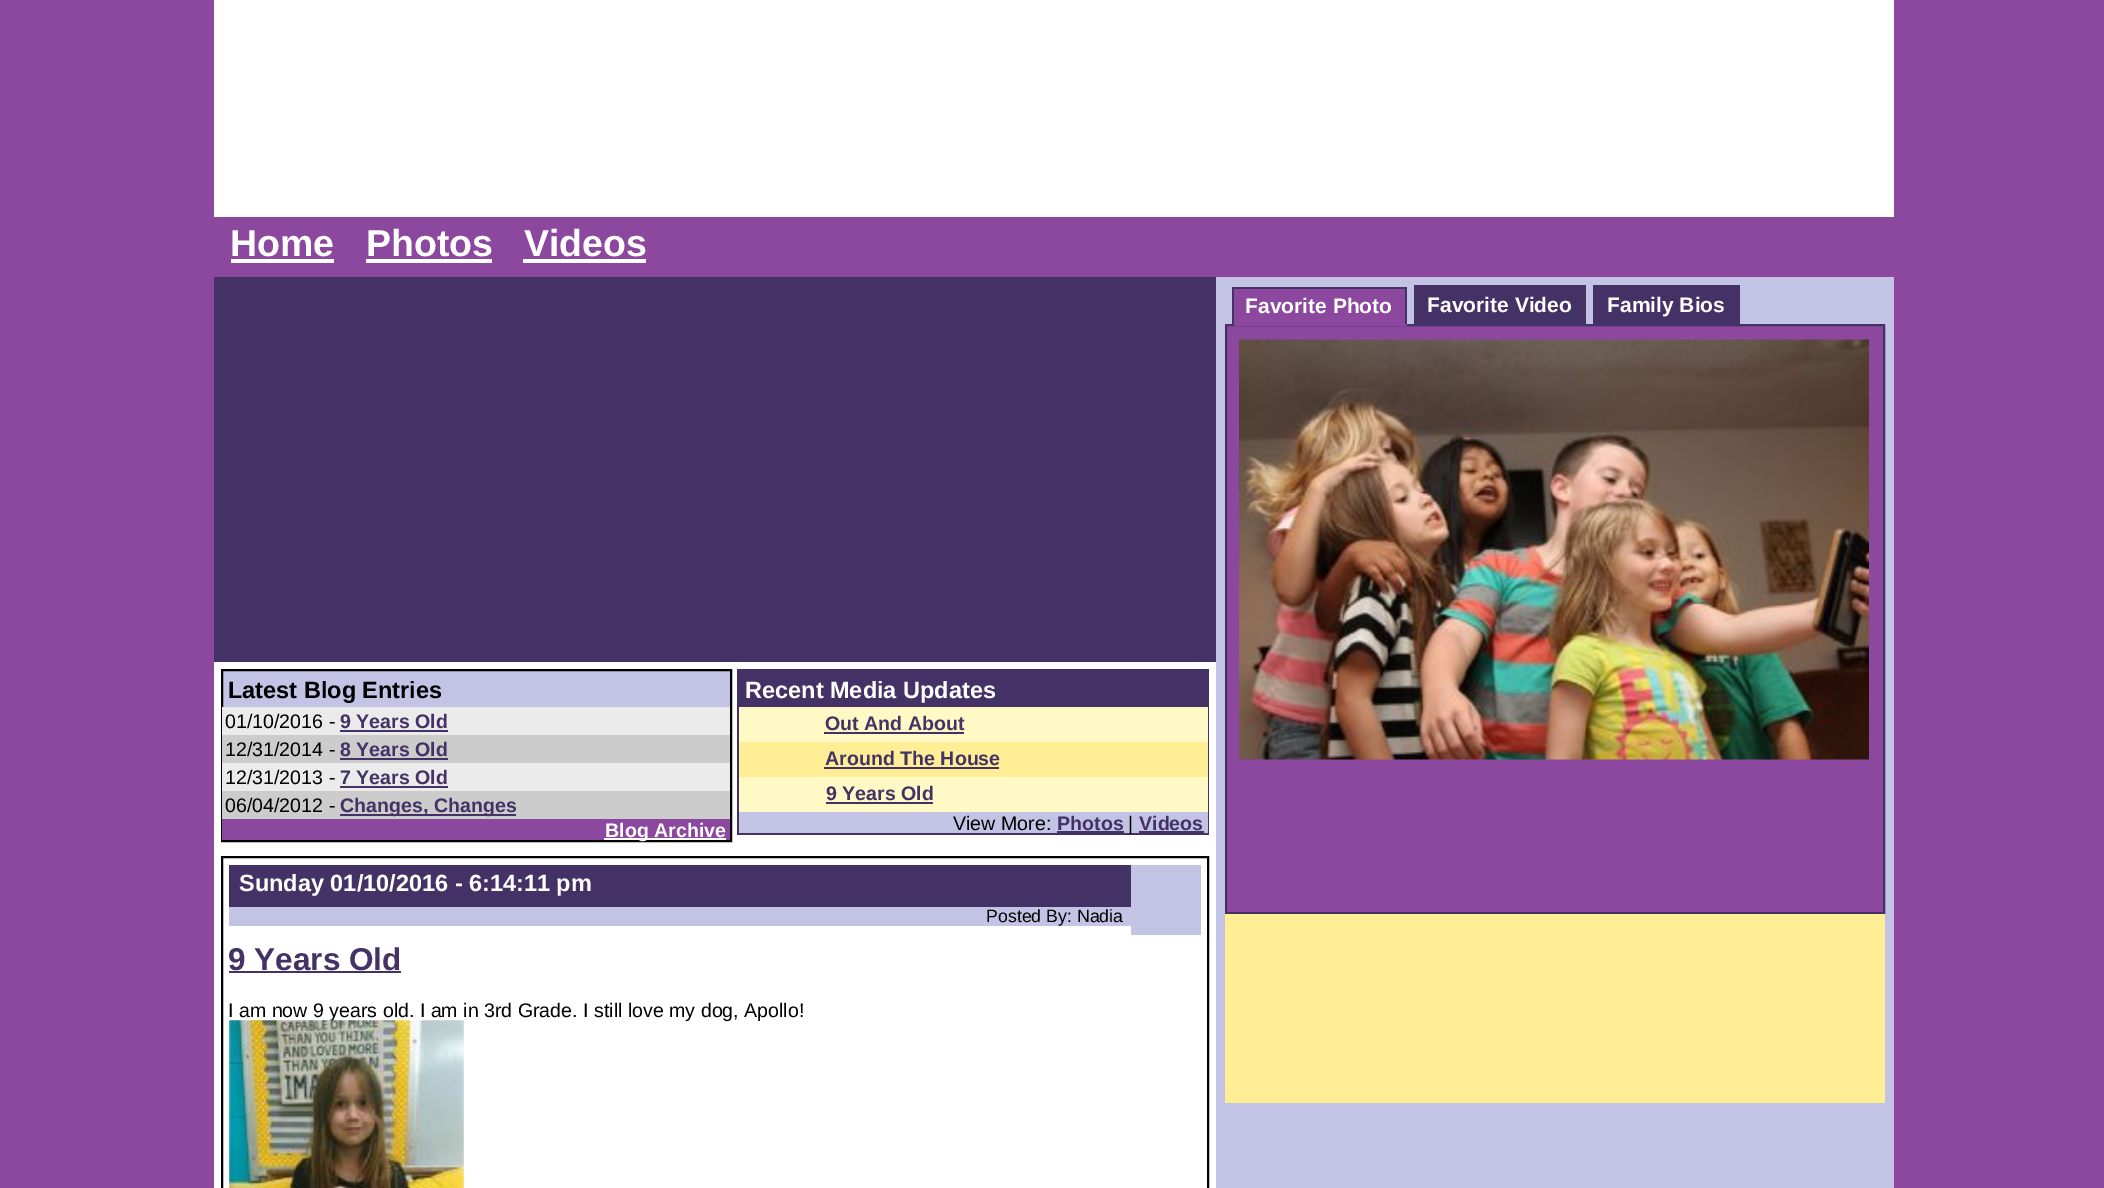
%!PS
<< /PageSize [2104 1188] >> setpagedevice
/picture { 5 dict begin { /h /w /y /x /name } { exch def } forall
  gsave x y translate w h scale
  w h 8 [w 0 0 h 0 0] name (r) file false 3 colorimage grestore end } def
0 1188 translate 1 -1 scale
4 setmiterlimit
0.549 0.282 0.624 setrgbcolor
0 0 2104 1188 rectfill
1 setgray
214 0 1680 217 rectfill
/LiberationSans-Bold [37.5 0 0 -37.5 0 0] selectfont
230 256 moveto (Home) show
231 259 103 4 rectfill
366 256 moveto (Photos) show
366 259 126 4 rectfill
524 256 moveto (Videos) show
523 259 123 4 rectfill
214 662 1002 526 rectfill
0.765 0.765 0.898 setrgbcolor
1216 277 678 911 rectfill
0.549 0.282 0.624 setrgbcolor
1234 289 171 35 rectfill
/LiberationSans-Bold [21 0 0 -21 0 0] selectfont
1 setgray
1245 313 moveto (Favorite Photo) show
0.267 0.196 0.4 setrgbcolor
1232 287 175 2 rectfill
0.549 0.282 0.624 setrgbcolor
newpath 1226 325 moveto 1884 325 lineto 1884 913 lineto 1226 913 lineto closepath gsave fill grestore
0.267 0.196 0.4 setrgbcolor
2 setlinewidth
stroke
1405 287 2 39 rectfill
0.549 0.282 0.624 setrgbcolor
1232 324 175 2 rectfill
0.267 0.196 0.4 setrgbcolor
1232 287 2 39 rectfill
1414 285 172 39 rectfill
1 setgray
1427 312 moveto (Favorite Video) show
0.267 0.196 0.4 setrgbcolor
1593 285 147 39 rectfill
1 setgray
1607 312 moveto (Family Bios) show
(img1.rgb) 1239 339 630 421 picture
1 0.933 0.588 setrgbcolor
1225 914 660 189 rectfill
0.267 0.196 0.4 setrgbcolor
214 277 1002 385 rectfill
0.765 0.765 0.898 setrgbcolor
223 671 507 36 rectfill
0 setgray
222 670 509 171 rectstroke
/LiberationSans-Bold [23.5 0 0 -23.5 0 0] selectfont
228 698 moveto (Latest Blog Entries) show
0.922 setgray
222 707 508 28 rectfill
/LiberationSans-Regular [19.6 0 0 -19.6 0 0] selectfont
0 setgray
225 728 moveto (01/10/2016 -) show
/LiberationSans-Bold [19.6 0 0 -19.6 0 0] selectfont
0.267 0.196 0.4 setrgbcolor
340 728 moveto (9 Years Old) show
340 730 108 2 rectfill
0.8 setgray
222 735 508 28 rectfill
/LiberationSans-Regular [19.6 0 0 -19.6 0 0] selectfont
0 setgray
225 756 moveto (12/31/2014 -) show
/LiberationSans-Bold [19.6 0 0 -19.6 0 0] selectfont
0.267 0.196 0.4 setrgbcolor
340 756 moveto (8 Years Old) show
340 758 108 2 rectfill
0.922 setgray
222 763 508 28 rectfill
/LiberationSans-Regular [19.6 0 0 -19.6 0 0] selectfont
0 setgray
225 784 moveto (12/31/2013 -) show
/LiberationSans-Bold [19.6 0 0 -19.6 0 0] selectfont
0.267 0.196 0.4 setrgbcolor
340 784 moveto (7 Years Old) show
340 786 108 2 rectfill
0.8 setgray
222 791 508 28 rectfill
/LiberationSans-Regular [19.6 0 0 -19.6 0 0] selectfont
0 setgray
225 812 moveto (06/04/2012 -) show
0.267 0.196 0.4 setrgbcolor
340 814 176 2 rectfill
/LiberationSans-Bold [19.6 0 0 -19.6 0 0] selectfont
340 812 moveto (Changes, Changes) show
0.549 0.282 0.624 setrgbcolor
222 819 508 21 rectfill
1 setgray
604 838 122 2 rectfill
605 837 moveto (Blog Archive) show
0.267 0.196 0.4 setrgbcolor
737 669 472 166 rectfill
/LiberationSans-Bold [23.5 0 0 -23.5 0 0] selectfont
1 setgray
745 698 moveto (Recent Media Updates) show
1 0.976 0.776 setrgbcolor
739 707 469 35 rectfill
/LiberationSans-Bold [19.6 0 0 -19.6 0 0] selectfont
0.267 0.196 0.4 setrgbcolor
825 730 moveto (Out And About) show
824 732 140 2 rectfill
1 0.933 0.588 setrgbcolor
739 742 469 35 rectfill
0.267 0.196 0.4 setrgbcolor
825 765 moveto (Around The House) show
824 767 175 2 rectfill
1 0.976 0.776 setrgbcolor
739 777 469 35 rectfill
0.267 0.196 0.4 setrgbcolor
826 800 moveto (9 Years Old) show
826 802 107 2 rectfill
0.765 0.765 0.898 setrgbcolor
739 812 469 21 rectfill
/LiberationSans-Regular [19.6 0 0 -19.6 0 0] selectfont
0 setgray
953 830 moveto (View More:) show
/LiberationSans-Bold [19.6 0 0 -19.6 0 0] selectfont
0.267 0.196 0.4 setrgbcolor
1057 830 moveto (Photos) show
1057 831 67 2 rectfill
/LiberationSans-Regular [19.6 0 0 -19.6 0 0] selectfont
0 setgray
1128 830 moveto (|) show
/LiberationSans-Bold [19.6 0 0 -19.6 0 0] selectfont
0.267 0.196 0.4 setrgbcolor
1139 830 moveto (Videos) show
1139 831 65 2 rectfill
0 setgray
222 857 986 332 rectstroke
0.267 0.196 0.4 setrgbcolor
229 865 902 42 rectfill
/LiberationSans-Bold [23.5 0 0 -23.5 0 0] selectfont
1 setgray
239 891 moveto (Sunday 01/10/2016 - 6:14:11 pm) show
0.765 0.765 0.898 setrgbcolor
229 907 902 19 rectfill
/LiberationSans-Regular [17.75 0 0 -17.75 0 0] selectfont
0 setgray
986 922 moveto (Posted By: Nadia) show
0.765 0.765 0.898 setrgbcolor
1131 865 70 70 rectfill
/LiberationSans-Bold [31.5 0 0 -31.5 0 0] selectfont
0.267 0.196 0.4 setrgbcolor
228 970 moveto (9 Years Old) show
229 971 172 2 rectfill
/LiberationSans-Regular [19.6 0 0 -19.6 0 0] selectfont
0 setgray
228 1017 moveto (I am now 9 years old. I am in 3rd Grade. I still love my dog, Apollo!) show
(img2.rgb) 229 1020 235 168 picture
showpage
